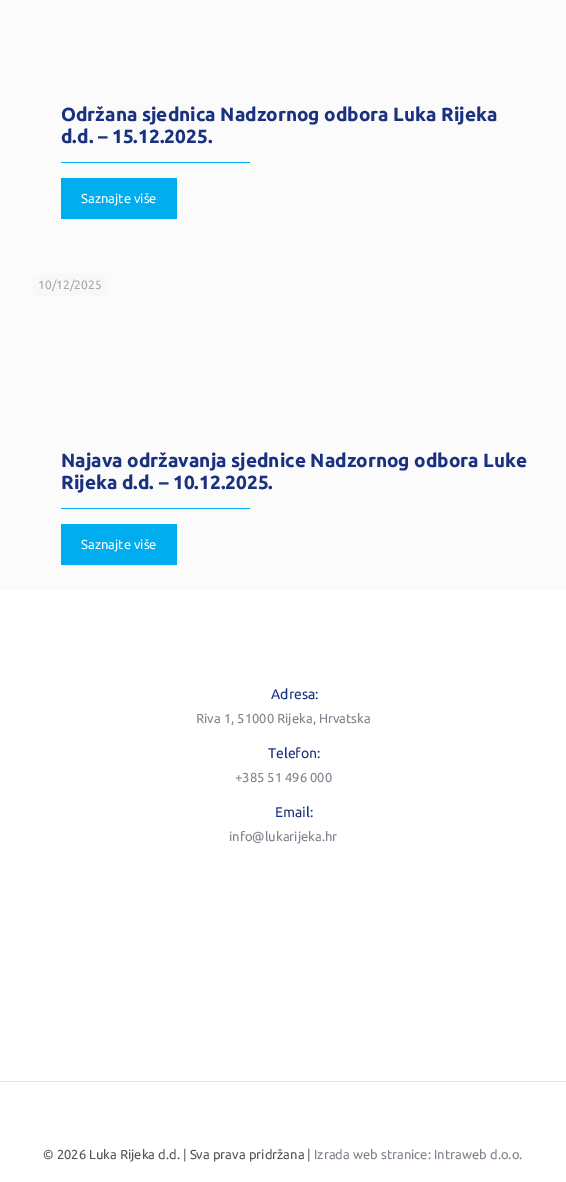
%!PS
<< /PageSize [566 1182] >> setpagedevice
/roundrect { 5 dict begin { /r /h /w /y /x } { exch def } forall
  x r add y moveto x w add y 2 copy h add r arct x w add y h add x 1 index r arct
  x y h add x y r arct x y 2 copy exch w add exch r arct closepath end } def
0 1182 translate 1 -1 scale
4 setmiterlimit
0.984 setgray
0 0 566 1182 rectfill
/Ubuntu-Bold [19 0 0 -19 0 0] selectfont
0.098 0.192 0.498 setrgbcolor
61 121 moveto (Održana sjednica Nadzornog odbora Luka Rijeka) show
61 143 moveto (d.d. – 15.12.2025.) show
0 0.682 0.937 setrgbcolor
61 162 189 1 rectfill
61 178 116 41 rectfill
/Ubuntu-Regular [13 0 0 -13 0 0] selectfont
1 setgray
81 203 moveto (Saznajte više) show
0.973 setgray
33 274 73 22 4 roundrect fill
/Ubuntu-Regular [12 0 0 -12 0 0] selectfont
0.659 setgray
38 289 moveto (10/12/2025) show
0.973 setgray
newpath 106 290 moveto 106 280 lineto 111 285 lineto closepath fill
/Ubuntu-Bold [19 0 0 -19 0 0] selectfont
0.098 0.192 0.498 setrgbcolor
61 467 moveto (Najava održavanja sjednice Nadzornog odbora Luke) show
61 489 moveto (Rijeka d.d. – 10.12.2025.) show
0 0.682 0.937 setrgbcolor
61 508 189 1 rectfill
61 524 116 41 rectfill
/Ubuntu-Regular [13 0 0 -13 0 0] selectfont
1 setgray
81 549 moveto (Saznajte više) show
0 590 566 592 rectfill
/Ubuntu-Regular [14 0 0 -14 0 0] selectfont
0.098 0.192 0.498 setrgbcolor
271 699 moveto (Adresa:) show
/Ubuntu-Regular [13 0 0 -13 0 0] selectfont
0.502 0.51 0.553 setrgbcolor
196 723 moveto (Riva 1, 51000 Rijeka, Hrvatska) show
/Ubuntu-Regular [14 0 0 -14 0 0] selectfont
0.098 0.192 0.498 setrgbcolor
268 758 moveto (Telefon:) show
/Ubuntu-Regular [13 0 0 -13 0 0] selectfont
0.502 0.51 0.553 setrgbcolor
235 782 moveto (+385 51 496 000) show
/Ubuntu-Regular [14 0 0 -14 0 0] selectfont
0.098 0.192 0.498 setrgbcolor
275 817 moveto (Email:) show
/Ubuntu-Regular [13 0 0 -13 0 0] selectfont
0.502 0.51 0.553 setrgbcolor
229 841 moveto (info@lukarijeka.hr) show
0.902 setgray
0 1081 566 1 rectfill
0.329 setgray
43 1159 moveto (© 2026 Luka Rijeka d.d. | Sva prava pridržana |) show
0.502 0.51 0.553 setrgbcolor
314 1159 moveto (Izrada web stranice: Intraweb d.o.o.) show
showpage
